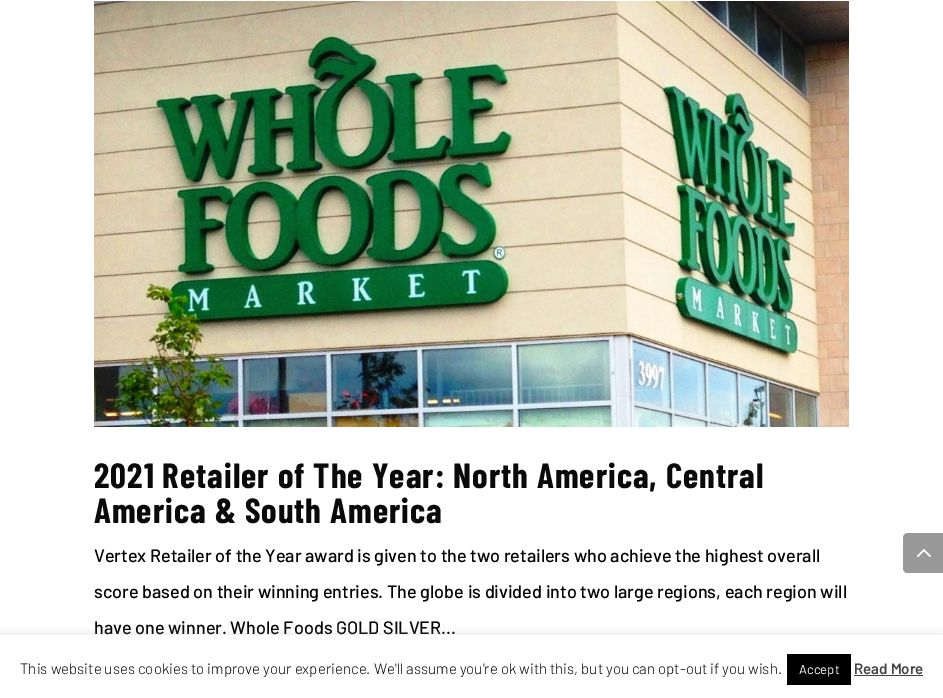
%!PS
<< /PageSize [943 698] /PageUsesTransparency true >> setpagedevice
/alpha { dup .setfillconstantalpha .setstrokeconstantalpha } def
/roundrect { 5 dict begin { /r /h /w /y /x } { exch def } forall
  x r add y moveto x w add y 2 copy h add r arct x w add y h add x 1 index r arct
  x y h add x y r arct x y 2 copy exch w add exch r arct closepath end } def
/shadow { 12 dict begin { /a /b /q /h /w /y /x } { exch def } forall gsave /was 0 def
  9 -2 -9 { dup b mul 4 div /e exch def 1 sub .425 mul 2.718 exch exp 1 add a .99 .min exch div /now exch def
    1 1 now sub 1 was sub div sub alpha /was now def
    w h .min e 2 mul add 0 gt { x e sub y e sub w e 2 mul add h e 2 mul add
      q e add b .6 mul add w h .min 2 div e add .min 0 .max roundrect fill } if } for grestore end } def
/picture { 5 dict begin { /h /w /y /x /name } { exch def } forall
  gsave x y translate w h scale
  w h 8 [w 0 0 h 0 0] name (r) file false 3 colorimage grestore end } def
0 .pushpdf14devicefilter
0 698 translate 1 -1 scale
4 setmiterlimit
1 setgray
0 0 943 698 rectfill
(img1.rgb) 94 1 755 426 picture
/BarlowCondensed-Bold [35 0 0 -35 0 0] selectfont
0.039 setgray
94 488 moveto 1 0 (2021 Retailer of The Year: North America, Central) ashow
94 523 moveto 1 0 (America & South America) ashow
/Barlow-Medium [18 0 0 -18 0 0] selectfont
0 setgray
94 562 moveto (Vertex Retailer of the Year award is given to the two retailers who achieve the highest overall) show
94 598 moveto (score based on their winning entries. The globe is divided into two large regions, each region will) show
94 634 moveto (have one winner. Whole Foods GOLD SILVER...) show
0.6 setgray
newpath 908 533 moveto 943 533 lineto 943 573 lineto 908 573 lineto 905 573 903 571 903 568 curveto 903 538 lineto 903 535 905 533 908 533 curveto closepath fill
(img2.rgb) 917 549 14 8 picture
0.675 0.671 0.671 setrgbcolor
0 634 943 63 0 5 0.3 shadow
1 setgray
0 635 943 63 rectfill
/Barlow-Light [15 0 0 -15 0 0] selectfont
0 setgray
20 674 moveto (This website uses cookies to improve your experience. We'll assume you're ok with this, but you can opt-out if you wish.) show
787 654 64 31 rectfill
/Barlow-Regular [13 0 0 -13 0 0] selectfont
1 setgray
799 674 moveto (Accept) show
/Barlow-SemiBold [15 0 0 -15 0 0] selectfont
0.267 setgray
854 674 moveto (Read More) show
854 675 69 1 rectfill
.poppdf14devicefilter showpage
